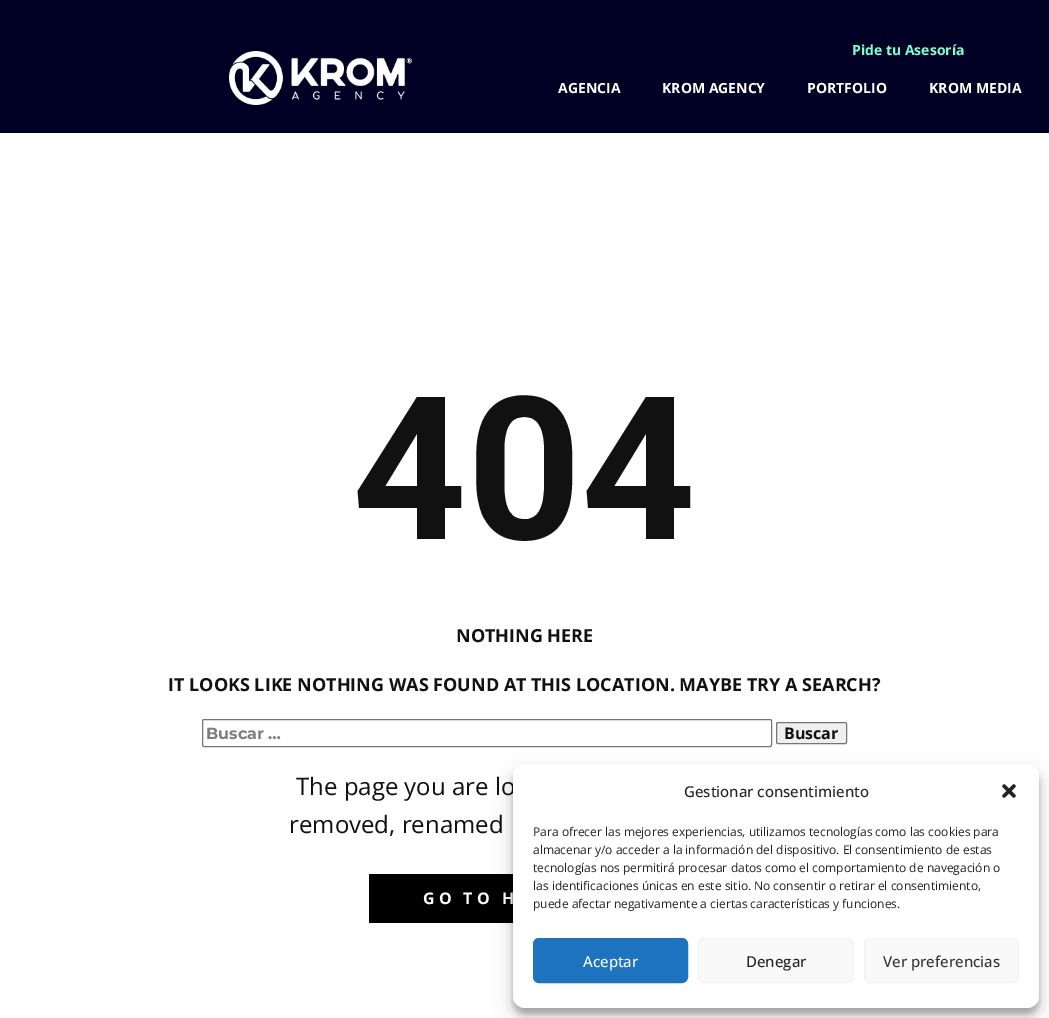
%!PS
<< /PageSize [1049 1018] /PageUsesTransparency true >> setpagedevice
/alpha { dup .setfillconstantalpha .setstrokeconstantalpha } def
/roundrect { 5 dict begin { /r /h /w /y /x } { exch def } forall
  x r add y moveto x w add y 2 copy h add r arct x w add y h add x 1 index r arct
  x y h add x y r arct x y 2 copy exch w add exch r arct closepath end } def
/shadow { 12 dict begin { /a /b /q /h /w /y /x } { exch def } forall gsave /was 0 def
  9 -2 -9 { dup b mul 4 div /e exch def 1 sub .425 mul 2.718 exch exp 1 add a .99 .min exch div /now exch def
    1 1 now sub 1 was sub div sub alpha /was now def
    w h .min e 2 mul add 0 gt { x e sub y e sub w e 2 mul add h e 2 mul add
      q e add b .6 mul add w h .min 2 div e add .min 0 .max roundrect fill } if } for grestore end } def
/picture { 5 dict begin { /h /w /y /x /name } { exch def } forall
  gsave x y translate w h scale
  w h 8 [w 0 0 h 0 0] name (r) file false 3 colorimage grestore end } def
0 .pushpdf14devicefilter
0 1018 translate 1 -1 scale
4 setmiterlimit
1 setgray
0 0 1049 1018 rectfill
0 0 0.141 setrgbcolor
0 0 1049 133 rectfill
(img1.rgb) 229 51 183 54 picture
/OpenSans-Bold [14 0 0 -14 0 0] selectfont
0.486 1 0.812 setrgbcolor
852 55 moveto (Pide tu Asesoría) show
1 setgray
558 93 moveto (AGENCIA) show
662 93 moveto (KROM AGENCY) show
807 93 moveto (PORTFOLIO) show
929 93 moveto (KROM MEDIA) show
/Roboto-Bold [200 0 0 -200 0 0] selectfont
0.067 setgray
352 539 moveto (404) show
/OpenSans-Bold [18 0 0 -18 0 0] selectfont
456 642 moveto (NOTHING HERE) show
168 691 moveto (IT LOOKS LIKE NOTHING WAS FOUND AT THIS LOCATION. MAYBE TRY A SEARCH?) show
0.463 setgray
202.5 719.5 569 27 1.5 roundrect stroke
/Montserrat-Bold [16 0 0 -16 0 0] selectfont
0.494 setgray
206 739 moveto (Buscar …) show
0.937 setgray
776.5 722.5 70 21 1.5 roundrect gsave fill grestore
0.463 setgray
stroke
/OpenSans-Bold [16 0 0 -16 0 0] selectfont
0.067 setgray
784 739 moveto (Buscar) show
/OpenSans-Regular [24 0 0 -24 0 0] selectfont
296 795 moveto (The page you are lo) show
289 833 moveto (removed, renamed) show
0 setgray
369 874 144 49 rectfill
/OpenSans-Bold [16 0 0 -16 0 0] selectfont
1 setgray
423 904 moveto 4 0 (GO TO H) ashow
0 setgray
513 770 526 244 12 3 0.23 shadow
513 774 526 244 12 10 0.19 shadow
1 setgray
513 764 526 244 12 roundrect fill
/OpenSans-Medium [15 0 0 -15 0 0] selectfont
0.133 setgray
684 797 moveto (Gestionar consentimiento) show
(img2.rgb) 1002 784 14 14 picture
/OpenSans-Regular [12 0 0 -12 0 0] selectfont
533 836 moveto (Para ofrecer las mejores experiencias, utilizamos tecnologías como las cookies para) show
533 854 moveto (almacenar y/o acceder a la información del dispositivo. El consentimiento de estas) show
533 872 moveto (tecnologías nos permitirá procesar datos como el comportamiento de navegación o) show
533 890 moveto (las identificaciones únicas en este sitio. No consentir o retirar el consentimiento,) show
533 908 moveto (puede afectar negativamente a ciertas características y funciones.) show
0.118 0.451 0.745 setrgbcolor
533.5 938.5 154 44 5.5 roundrect gsave fill grestore
stroke
/OpenSans-Medium [15 0 0 -15 0 0] selectfont
1 setgray
583 967 moveto (Aceptar) show
0.976 setgray
698.5 938.5 155 44 5.5 roundrect gsave fill grestore
0.949 setgray
stroke
0.133 setgray
746 967 moveto (Denegar) show
0.976 setgray
864.5 938.5 154 44 5.5 roundrect gsave fill grestore
0.949 setgray
stroke
0.2 setgray
883 967 moveto (Ver preferencias) show
.poppdf14devicefilter showpage
